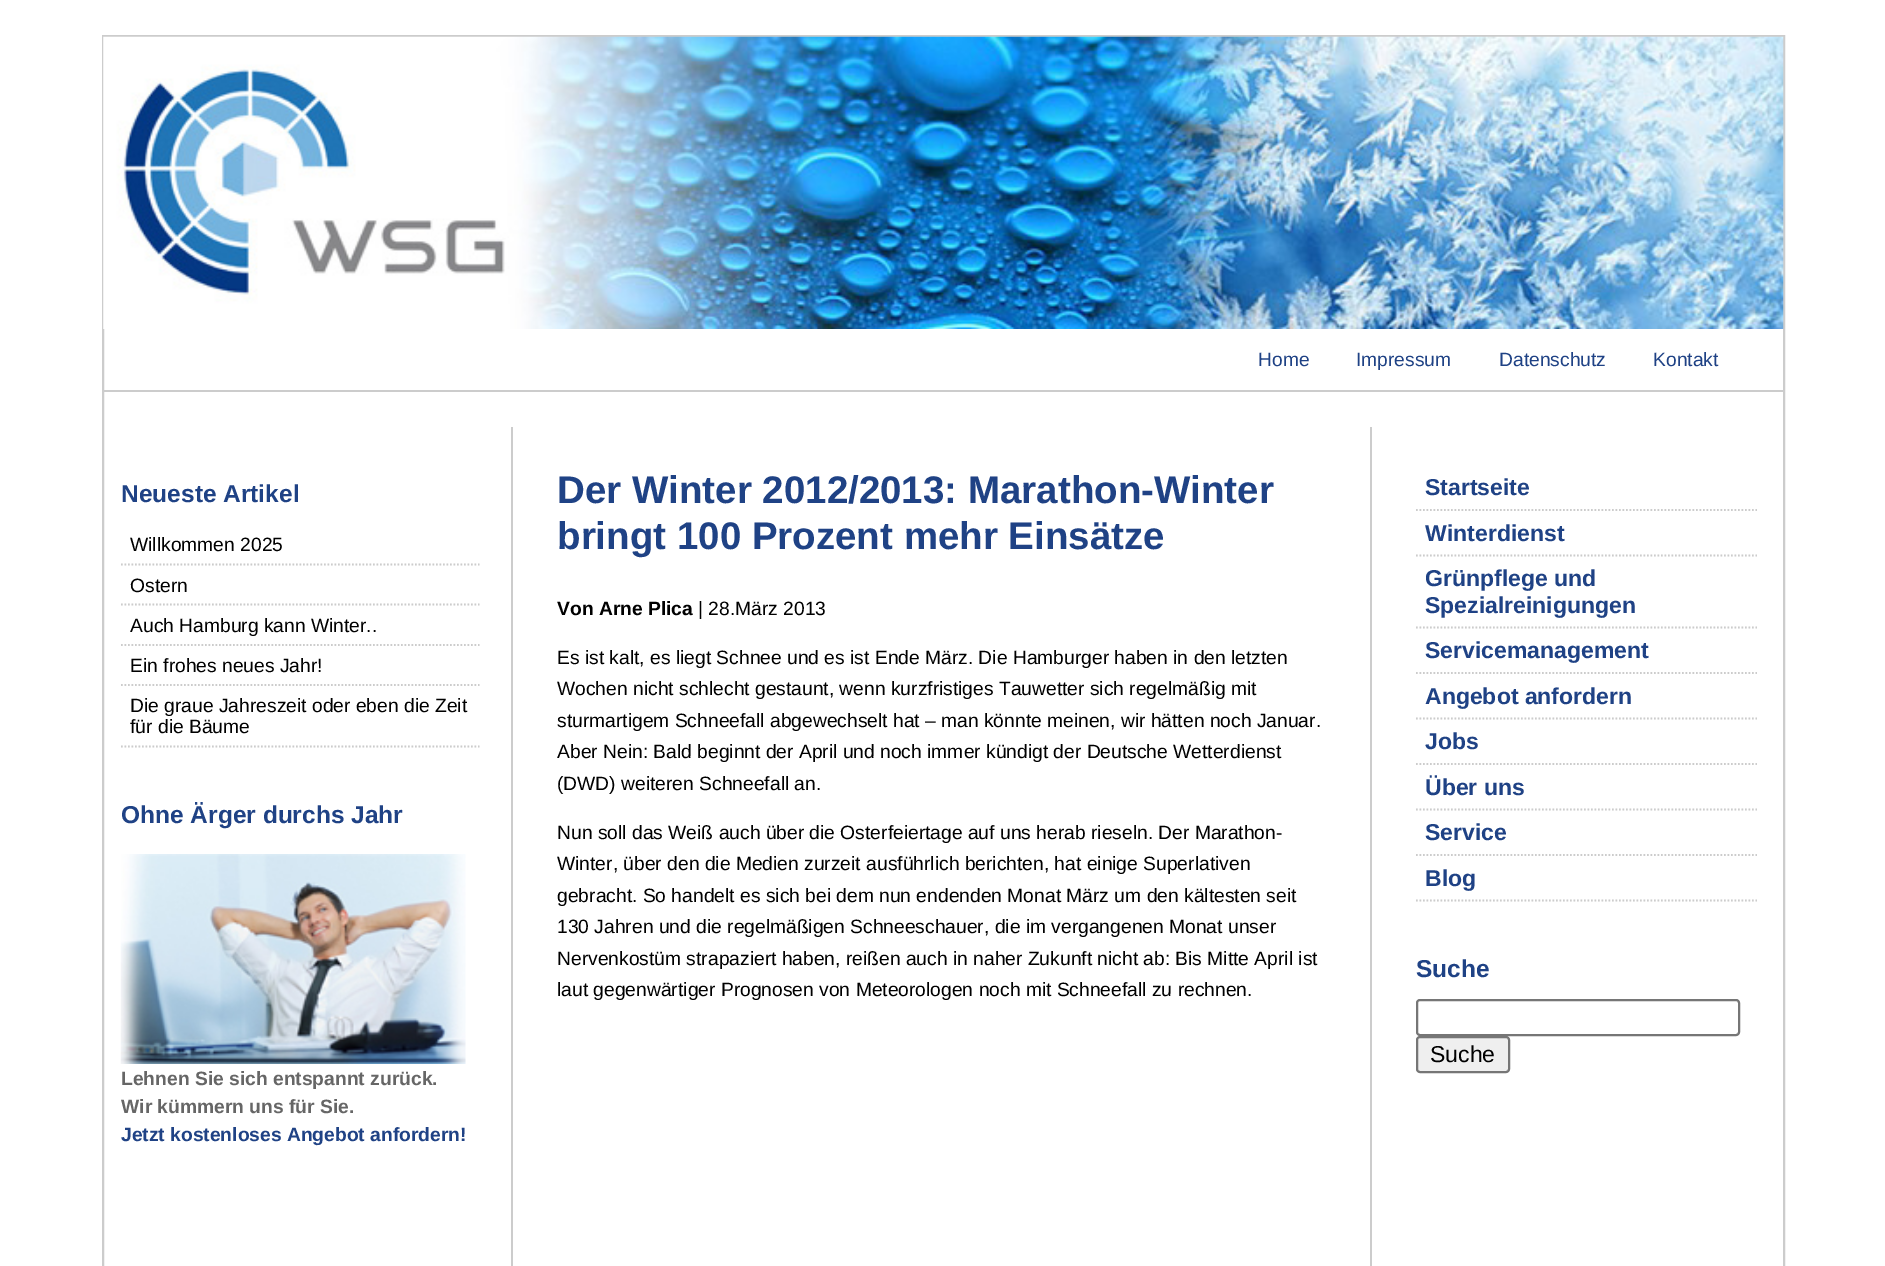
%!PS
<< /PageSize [1885 1266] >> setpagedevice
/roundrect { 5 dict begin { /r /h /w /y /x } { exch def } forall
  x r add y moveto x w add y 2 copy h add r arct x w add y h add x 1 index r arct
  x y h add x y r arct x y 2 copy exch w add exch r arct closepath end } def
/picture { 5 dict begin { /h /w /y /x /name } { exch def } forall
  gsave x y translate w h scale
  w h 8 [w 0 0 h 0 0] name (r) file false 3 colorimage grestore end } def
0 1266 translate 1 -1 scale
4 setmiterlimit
1 setgray
0 0 1885 1266 rectfill
0.8 setgray
2 setlinewidth
103 36 1681 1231 rectstroke
(img1.rgb) 103 36 1681 293 picture
103 390 1680 2 rectfill
/LiberationSans-Regular [19.25 0 0 -19.25 0 0] selectfont
0.122 0.259 0.522 setrgbcolor
1258 366 moveto (Home) show
1356 366 moveto (Impressum) show
1499 366 moveto (Datenschutz) show
1653 366 moveto (Kontakt) show
/LiberationSans-Bold [24.5 0 0 -24.5 0 0] selectfont
121 502 moveto (Neueste Artikel) show
0.8 setgray
1.8 setlinewidth
[1.75 1.75] 0 setdash
newpath 121 564.5 moveto 479.5 564.5 lineto stroke
/LiberationSans-Regular [19.25 0 0 -19.25 0 0] selectfont
0 setgray
130 551 moveto (Willkommen 2025) show
0.8 setgray
newpath 121 604.5 moveto 479.5 604.5 lineto stroke
0 setgray
130 592 moveto (Ostern) show
0.8 setgray
newpath 121 645 moveto 479.5 645 lineto stroke
0 setgray
130 632 moveto (Auch Hamburg kann Winter..) show
0.8 setgray
newpath 121 685 moveto 479.5 685 lineto stroke
0 setgray
130 672 moveto (Ein frohes neues Jahr!) show
0.8 setgray
newpath 121 746.5 moveto 479.5 746.5 lineto stroke
0 setgray
130 712 moveto (Die graue Jahreszeit oder eben die Zeit) show
130 733 moveto (für die Bäume) show
/LiberationSans-Bold [24.5 0 0 -24.5 0 0] selectfont
0.122 0.259 0.522 setrgbcolor
121 823 moveto (Ohne Ärger durchs Jahr) show
(img2.rgb) 120 854 346 210 picture
/LiberationSans-Bold [19.25 0 0 -19.25 0 0] selectfont
0.4 setgray
121 1085 moveto (Lehnen Sie sich entspannt zurück.) show
121 1113 moveto (Wir kümmern uns für Sie.) show
0.122 0.259 0.522 setrgbcolor
121 1141 moveto (Jetzt kostenloses Angebot anfordern!) show
0.8 setgray
1370 427 2 839 rectfill
511 427 2 839 rectfill
/LiberationSans-Bold [38.5 0 0 -38.5 0 0] selectfont
0.122 0.259 0.522 setrgbcolor
557 503 moveto (Der Winter 2012/2013: Marathon-Winter) show
557 549 moveto (bringt 100 Prozent mehr Einsätze) show
/LiberationSans-Bold [19.25 0 0 -19.25 0 0] selectfont
0 setgray
557 615 moveto (Von Arne Plica) show
/LiberationSans-Regular [19.25 0 0 -19.25 0 0] selectfont
698 615 moveto (| 28.März 2013) show
557 664 moveto (Es ist kalt, es liegt Schnee und es ist Ende März. Die Hamburger haben in den letzten) show
557 695 moveto (Wochen nicht schlecht gestaunt, wenn kurzfristiges Tauwetter sich regelmäßig mit) show
557 727 moveto (sturmartigem Schneefall abgewechselt hat – man könnte meinen, wir hätten noch Januar.) show
557 758 moveto (Aber Nein: Bald beginnt der April und noch immer kündigt der Deutsche Wetterdienst) show
557 790 moveto (\(DWD\) weiteren Schneefall an.) show
557 839 moveto (Nun soll das Weiß auch über die Osterfeiertage auf uns herab rieseln. Der Marathon-) show
557 870 moveto (Winter, über den die Medien zurzeit ausführlich berichten, hat einige Superlativen) show
557 902 moveto (gebracht. So handelt es sich bei dem nun endenden Monat März um den kältesten seit) show
557 933 moveto (130 Jahren und die regelmäßigen Schneeschauer, die im vergangenen Monat unser) show
557 965 moveto (Nervenkostüm strapaziert haben, reißen auch in naher Zukunft nicht ab: Bis Mitte April ist) show
557 996 moveto (laut gegenwärtiger Prognosen von Meteorologen noch mit Schneefall zu rechnen.) show
0.8 setgray
newpath 1416 510 moveto 1757 510 lineto stroke
/LiberationSans-Bold [23 0 0 -23 0 0] selectfont
0.122 0.259 0.522 setrgbcolor
1425 495 moveto (Startseite) show
0.8 setgray
newpath 1416 555.5 moveto 1757 555.5 lineto stroke
0.122 0.259 0.522 setrgbcolor
1425 541 moveto (Winterdienst) show
0.8 setgray
newpath 1416 627.5 moveto 1757 627.5 lineto stroke
0.122 0.259 0.522 setrgbcolor
1425 586 moveto (Grünpflege und) show
1425 613 moveto (Spezialreinigungen) show
0.8 setgray
newpath 1416 673 moveto 1757 673 lineto stroke
0.122 0.259 0.522 setrgbcolor
1425 658 moveto (Servicemanagement) show
0.8 setgray
newpath 1416 718.5 moveto 1757 718.5 lineto stroke
0.122 0.259 0.522 setrgbcolor
1425 704 moveto (Angebot anfordern) show
0.8 setgray
newpath 1416 764 moveto 1757 764 lineto stroke
0.122 0.259 0.522 setrgbcolor
1425 749 moveto (Jobs) show
0.8 setgray
newpath 1416 809.5 moveto 1757 809.5 lineto stroke
0.122 0.259 0.522 setrgbcolor
1425 795 moveto (Über uns) show
0.8 setgray
newpath 1416 855 moveto 1757 855 lineto stroke
0.122 0.259 0.522 setrgbcolor
1425 840 moveto (Service) show
0.8 setgray
newpath 1416 900.5 moveto 1757 900.5 lineto stroke
0.122 0.259 0.522 setrgbcolor
1425 886 moveto (Blog) show
/LiberationSans-Bold [24.5 0 0 -24.5 0 0] selectfont
1416 977 moveto (Suche) show
0.463 setgray
2 setlinewidth
[] 0 setdash
1417 1000 322 35 3 roundrect stroke
0.937 setgray
1417 1037 92 35 3 roundrect gsave fill grestore
0.463 setgray
stroke
/LiberationSans-Regular [23 0 0 -23 0 0] selectfont
0 setgray
1430 1062 moveto (Suche) show
showpage
